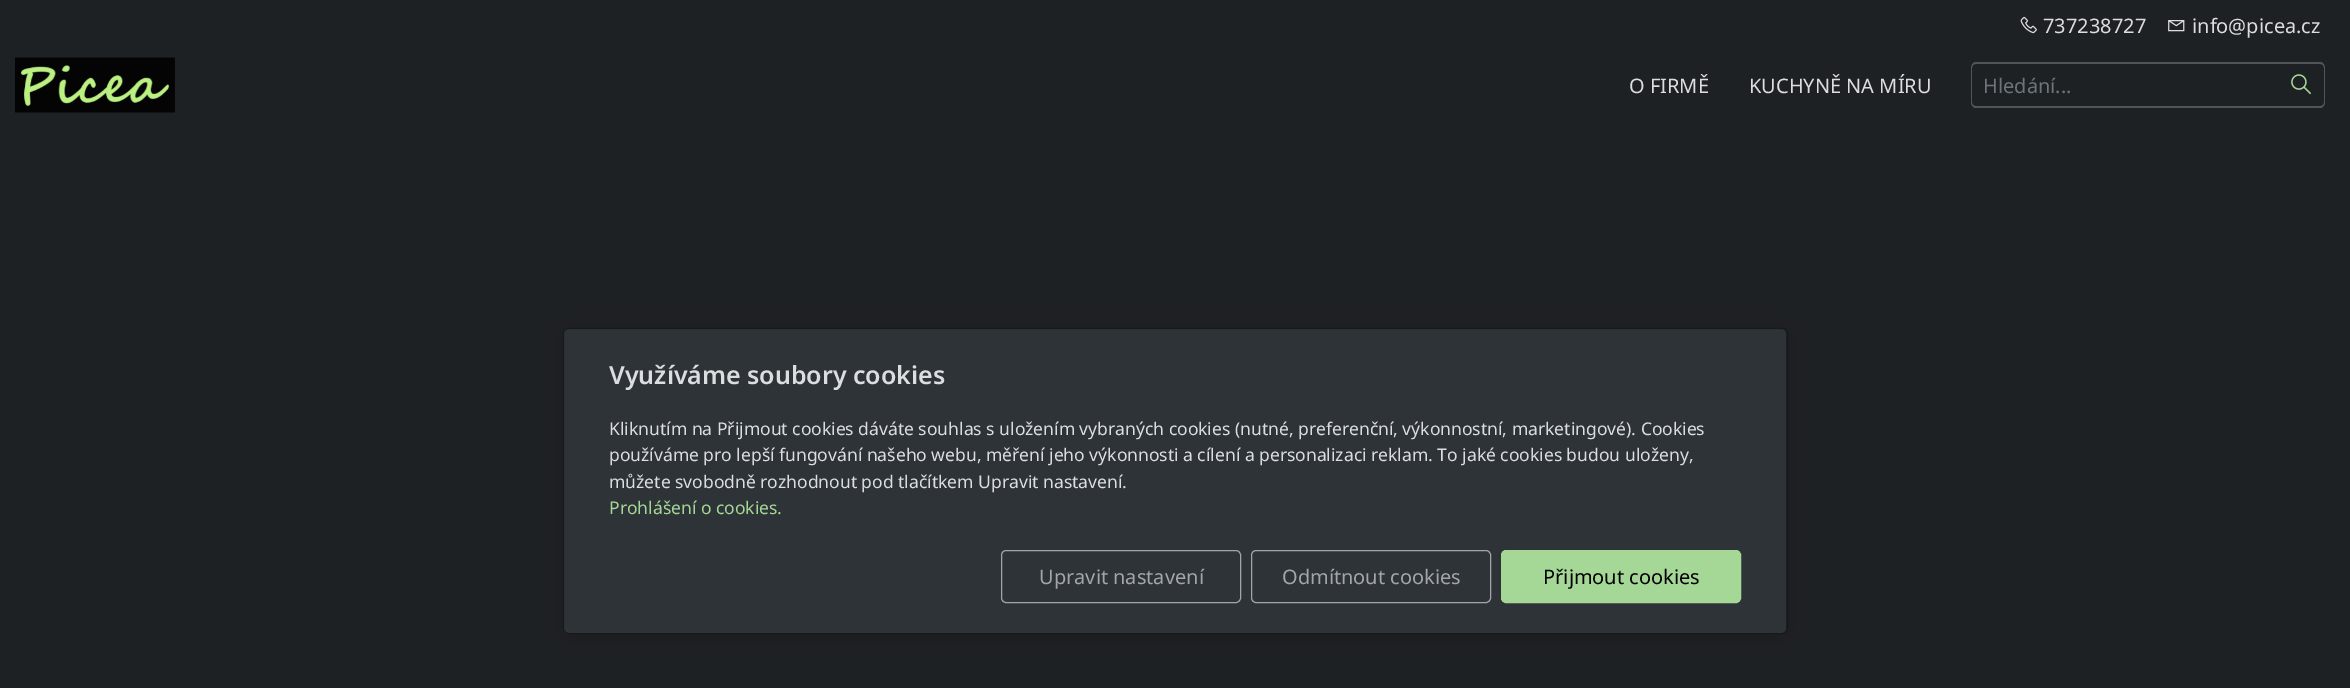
%!PS
<< /PageSize [2350 688] /PageUsesTransparency true >> setpagedevice
/alpha { dup .setfillconstantalpha .setstrokeconstantalpha } def
/roundrect { 5 dict begin { /r /h /w /y /x } { exch def } forall
  x r add y moveto x w add y 2 copy h add r arct x w add y h add x 1 index r arct
  x y h add x y r arct x y 2 copy exch w add exch r arct closepath end } def
/shadow { 12 dict begin { /a /b /q /h /w /y /x } { exch def } forall gsave /was 0 def
  9 -2 -9 { dup b mul 4 div /e exch def 1 sub .425 mul 2.718 exch exp 1 add a .99 .min exch div /now exch def
    1 1 now sub 1 was sub div sub alpha /was now def
    w h .min e 2 mul add 0 gt { x e sub y e sub w e 2 mul add h e 2 mul add
      q e add b .6 mul add w h .min 2 div e add .min 0 .max roundrect fill } if } for grestore end } def
/picture { 5 dict begin { /h /w /y /x /name } { exch def } forall
  gsave x y translate w h scale
  w h 8 [w 0 0 h 0 0] name (r) file false 3 colorimage grestore end } def
0 .pushpdf14devicefilter
0 688 translate 1 -1 scale
4 setmiterlimit
0.118 0.129 0.141 setrgbcolor
0 0 2350 688 rectfill
(img1.rgb) 2020 16 17 18 picture
/NotoSans-Regular [20 0 0 -20 0 0] selectfont
0.863 0.867 0.878 setrgbcolor
2043 33 moveto (737238727) show
(img2.rgb) 2168 20 17 12 picture
2192 33 moveto (info@picea.cz) show
(img3.rgb) 15 57 160 56 picture
1629 93 moveto (O FIRMĚ) show
1749 93 moveto (KUCHYNĚ NA MÍRU) show
0.318 0.333 0.353 setrgbcolor
newpath 1976 62 moveto 2279 62 lineto 2279 108 lineto 1976 108 lineto 1973 108 1971 105 1971 102 curveto 1971 68 lineto 1971 65 1973 62 1976 62 curveto closepath 1976 64 moveto 2279 64 lineto 2279 106 lineto 1976 106 lineto 1974 106 1972 105 1972 102 curveto 1972 68 lineto 1972 65 1974 64 1976 64 curveto closepath eofill
0.424 0.459 0.49 setrgbcolor
1983 93 moveto (Hledání...) show
0.318 0.333 0.353 setrgbcolor
newpath 2279 62 moveto 2320 62 lineto 2323 62 2325 65 2325 68 curveto 2325 102 lineto 2325 105 2323 108 2320 108 curveto 2279 108 lineto closepath 2279 64 moveto 2320 64 lineto 2322 64 2324 65 2324 68 curveto 2324 102 lineto 2324 105 2322 106 2320 106 curveto 2279 106 lineto closepath eofill
(img4.rgb) 2291 74 21 21 picture
0 setgray
575 343 1200 281 0 12.5 0.5 shadow
0.18 0.2 0.22 setrgbcolor
564 329 1222 304 5 roundrect fill
0.2 alpha
0 setgray
563.5 328.5 1224 305 5.5 roundrect stroke
/NotoSans-SemiBold [25 0 0 -25 0 0] selectfont
1 alpha
0.863 0.867 0.878 setrgbcolor
609 384 moveto (Využíváme soubory cookies) show
/NotoSans-Regular [17.5 0 0 -17.5 0 0] selectfont
609 435 moveto (Kliknutím na Přijmout cookies dáváte souhlas s uložením vybraných cookies \(nutné, preferenční, výkonnostní, marketingové\). Cookies) show
609 461 moveto (používáme pro lepší fungování našeho webu, měření jeho výkonnosti a cílení a personalizaci reklam. To jaké cookies budou uloženy,) show
609 488 moveto (můžete svobodně rozhodnout pod tlačítkem Upravit nastavení.) show
0.647 0.847 0.592 setrgbcolor
609 514 moveto (Prohlášení o cookies.) show
0.639 0.647 0.659 setrgbcolor
1001.5 550.5 239 52 4.5 roundrect stroke
/NotoSans-Regular [20 0 0 -20 0 0] selectfont
1039 584 moveto (Upravit nastavení) show
1251.5 550.5 239 52 4.5 roundrect stroke
1282 584 moveto (Odmítnout cookies) show
0.647 0.847 0.592 setrgbcolor
1501.5 550.5 239 52 4.5 roundrect gsave fill grestore
stroke
0 setgray
1543 584 moveto (Přijmout cookies) show
.poppdf14devicefilter showpage
